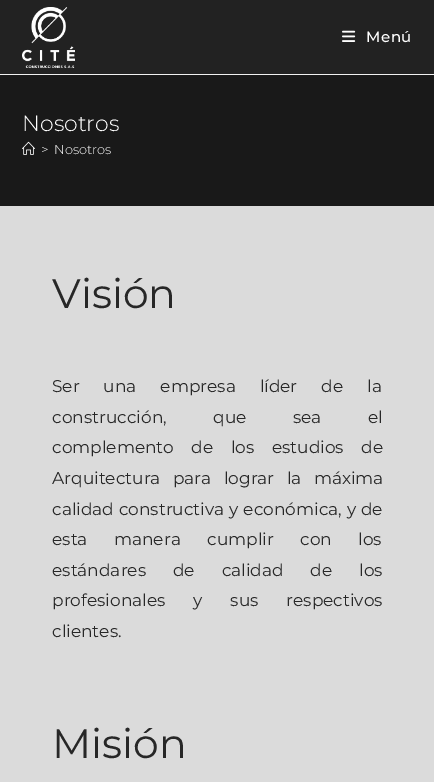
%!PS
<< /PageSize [434 782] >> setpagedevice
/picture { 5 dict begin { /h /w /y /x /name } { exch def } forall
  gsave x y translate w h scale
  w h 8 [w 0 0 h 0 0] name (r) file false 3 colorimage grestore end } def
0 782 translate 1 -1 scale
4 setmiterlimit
0.098 setgray
0 0 434 782 rectfill
0.133 setgray
0 0 434 74 rectfill
0.945 setgray
0 74 434 1 rectfill
(img1.rgb) 22 7 53 61 picture
(img2.rgb) 342 30 14 12 picture
/Montserrat-Medium [15 0 0 -15 0 0] selectfont
1 setgray
366 42 moveto 0.5 0 (Menú) ashow
/Montserrat-Light [22 0 0 -22 0 0] selectfont
22 131 moveto (Nosotros) show
(img3.rgb) 22 141 13 14 picture
/Montserrat-Light [13 0 0 -13 0 0] selectfont
41 154 moveto (>) show
54 154 moveto (Nosotros) show
0.859 setgray
0 206 434 576 rectfill
/Montserrat-Regular [41 0 0 -41 0 0] selectfont
0.153 setgray
52 308 moveto (Visión) show
/Montserrat-Regular [17 0 0 -17 0 0] selectfont
52 392 moveto 19.5 0 32 (Ser una empresa líder de la) widthshow
52 423 moveto 42 0 32 (construcción, que sea el) widthshow
52 453 moveto 13 0 32 (complemento de los estudios de) widthshow
52 484 moveto 8 0 32 (Arquitectura para lograr la máxima) widthshow
52 515 moveto 0.5 0 32 (calidad constructiva y económica, y de) widthshow
52 545 moveto 22 0 32 (esta manera cumplir con los) widthshow
52 576 moveto 22.5 0 32 (estándares de calidad de los) widthshow
52 606 moveto 23.5 0 32 (profesionales y sus respectivos) widthshow
52 637 moveto (clientes.) show
/Montserrat-Regular [41 0 0 -41 0 0] selectfont
52 758 moveto (Misión) show
showpage
